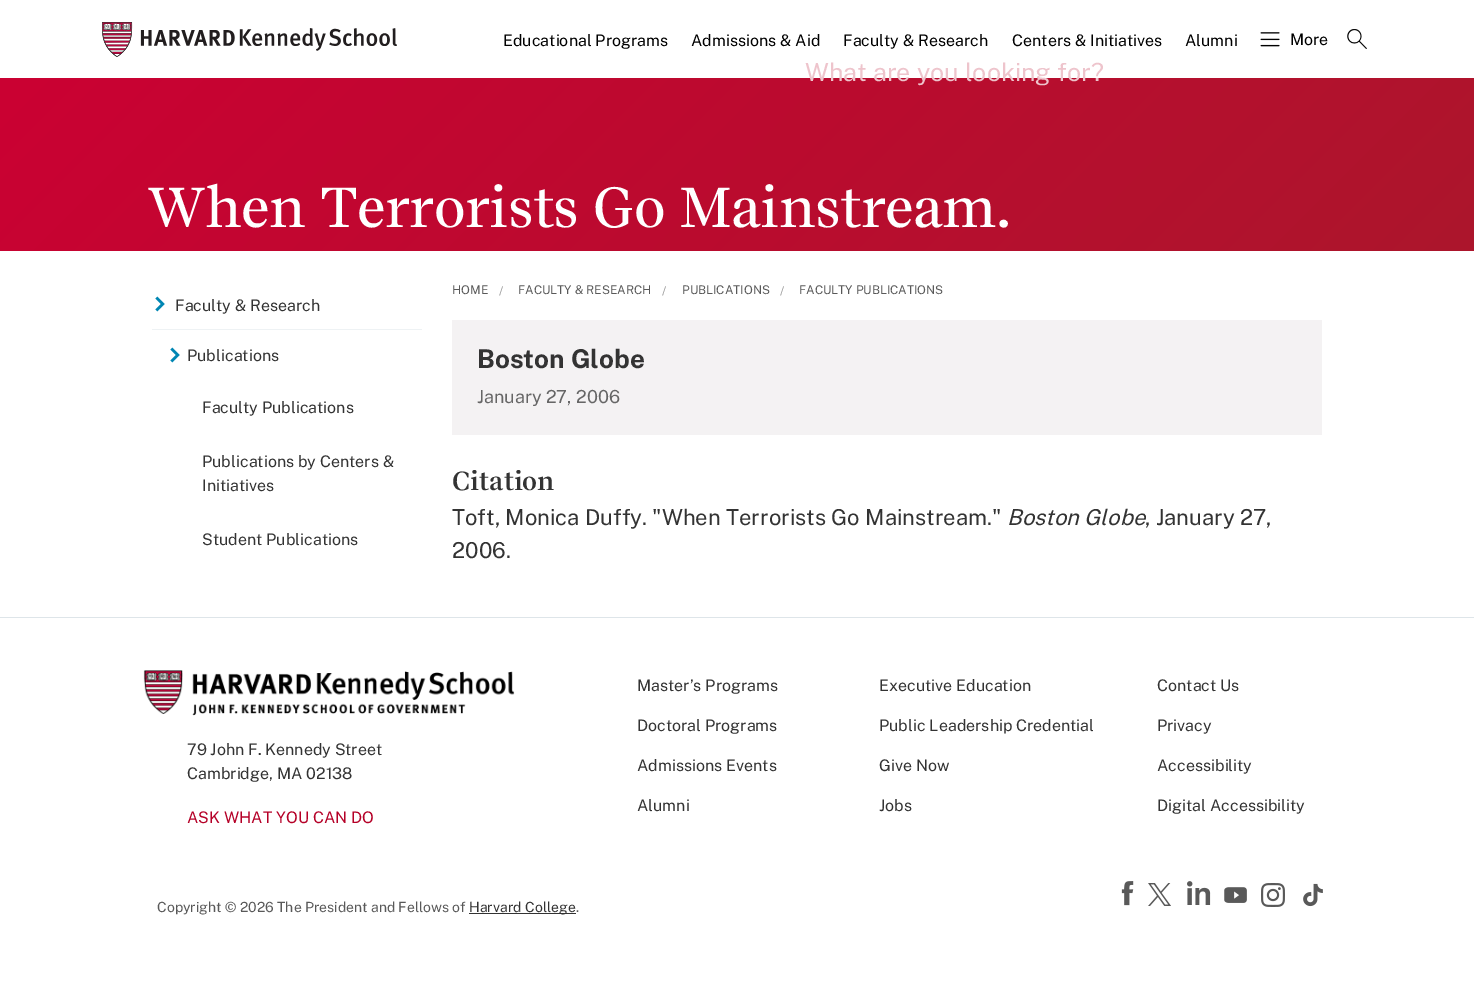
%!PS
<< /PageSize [1474 1008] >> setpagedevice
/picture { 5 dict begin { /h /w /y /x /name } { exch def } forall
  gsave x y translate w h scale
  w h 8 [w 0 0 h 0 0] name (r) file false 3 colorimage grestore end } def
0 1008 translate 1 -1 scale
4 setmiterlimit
1 setgray
0 0 1474 1008 rectfill
gsave newpath 0 78 moveto 1474 78 lineto 1474 251 lineto 0 251 lineto closepath clip newpath
<< /ShadingType 2 /ColorSpace /DeviceRGB /Coords [306 -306 1168 557] /Extend [true true] /Function << /FunctionType 2 /Domain [0 1] /C0 [0.8 0 0.2] /C1 [0.675 0.086 0.173] /N 1 >> >> shfill grestore
(img1.rgb) 102 22 295 35 picture
/PublicSans-Thin [16 0 0 -16 0 0] selectfont
0 setgray
503 46 moveto (Educational Programs) show
691 46 moveto (Admissions & Aid) show
843 46 moveto (Faculty & Research) show
1012 46 moveto (Centers & Initiatives) show
1185 46 moveto (Alumni) show
(img2.rgb) 1260 32 20 15 picture
1290 45 moveto (More) show
(img3.rgb) 1347 29 20 20 picture
/PublicSans-Thin [25 0 0 -25 0 0] selectfont
0.933 0.769 0.8 setrgbcolor
805 81 moveto (What are you looking for?) show
/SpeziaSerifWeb-Medium [56 0 0 -56 0 0] selectfont
1 setgray
147 227 moveto -1 0 (When Terrorists Go Mainstream.) ashow
0.933 0.949 0.957 setrgbcolor
152 329 270 1 rectfill
(img4.rgb) 155 296 10 16 picture
/PublicSans-Thin [16 0 0 -16 0 0] selectfont
0.2 setgray
175 311 moveto (Faculty & Research) show
(img4.rgb) 170 347 10 16 picture
187 361 moveto (Publications) show
202 413 moveto (Faculty Publications) show
202 467 moveto (Publications by Centers &) show
202 491 moveto (Initiatives) show
202 545 moveto (Student Publications) show
/PublicSans-Thin [12 0 0 -12 0 0] selectfont
0.349 setgray
452 294 moveto (HOME) show
0.6 setgray
499 295 moveto (/) show
0.349 setgray
518 294 moveto (FACULTY & RESEARCH) show
0.6 setgray
662 295 moveto (/) show
0.349 setgray
682 294 moveto (PUBLICATIONS) show
0.6 setgray
780 295 moveto (/) show
0.349 setgray
799 294 moveto (FACULTY PUBLICATIONS) show
0.957 0.949 0.953 setrgbcolor
452 320 870 115 rectfill
/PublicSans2-Thin [26 0 0 -26 0 0] selectfont
0.2 setgray
477 368 moveto (Boston Globe) show
/PublicSans-Thin [18 0 0 -18 0 0] selectfont
0.4 setgray
477 403 moveto (January 27, 2006) show
/SpeziaSerifWeb-SemiBold [26 0 0 -26 0 0] selectfont
0.2 setgray
452 490 moveto -0.25 0 (Citation) ashow
/PublicSans-Thin [22 0 0 -22 0 0] selectfont
452 525 moveto (Toft, Monica Duffy. "When Terrorists Go Mainstream.") show
/PublicSans-ThinItalic [22 0 0 -22 0 0] selectfont
1007 525 moveto (Boston Globe) show
/PublicSans-Thin [22 0 0 -22 0 0] selectfont
1145 525 moveto (, January 27,) show
452 558 moveto (2006.) show
0.871 0.898 0.914 setrgbcolor
0 617 1474 1 rectfill
(img5.rgb) 143 670 372 46 picture
/PublicSans-Thin [16 0 0 -16 0 0] selectfont
0.2 setgray
187 755 moveto (79 John F. Kennedy Street) show
187 779 moveto (Cambridge, MA 02138) show
0.71 0 0.153 setrgbcolor
187 823 moveto (ASK WHAT YOU CAN DO) show
0.2 setgray
637 691 moveto (Master’s Programs) show
879 691 moveto (Executive Education) show
637 731 moveto (Doctoral Programs) show
879 731 moveto (Public Leadership Credential) show
637 771 moveto (Admissions Events) show
879 771 moveto (Give Now) show
637 811 moveto (Alumni) show
879 811 moveto (Jobs) show
1157 691 moveto (Contact Us) show
1157 731 moveto (Privacy) show
1157 771 moveto (Accessibility) show
1157 811 moveto (Digital Accessibility) show
/PublicSans-Thin [14 0 0 -14 0 0] selectfont
0.349 setgray
157 912 moveto (Copyright © 2026 The President and Fellows of) show
0.2 setgray
469 913 107 1 rectfill
469 912 moveto (Harvard College) show
0.349 setgray
576 912 moveto (.) show
(img6.rgb) 1121 881 13 25 picture
(img7.rgb) 1148 883 23 23 picture
(img8.rgb) 1187 881 24 24 picture
(img9.rgb) 1224 887 23 16 picture
(img10.rgb) 1261 883 24 24 picture
(img11.rgb) 1303 883 20 24 picture
showpage
